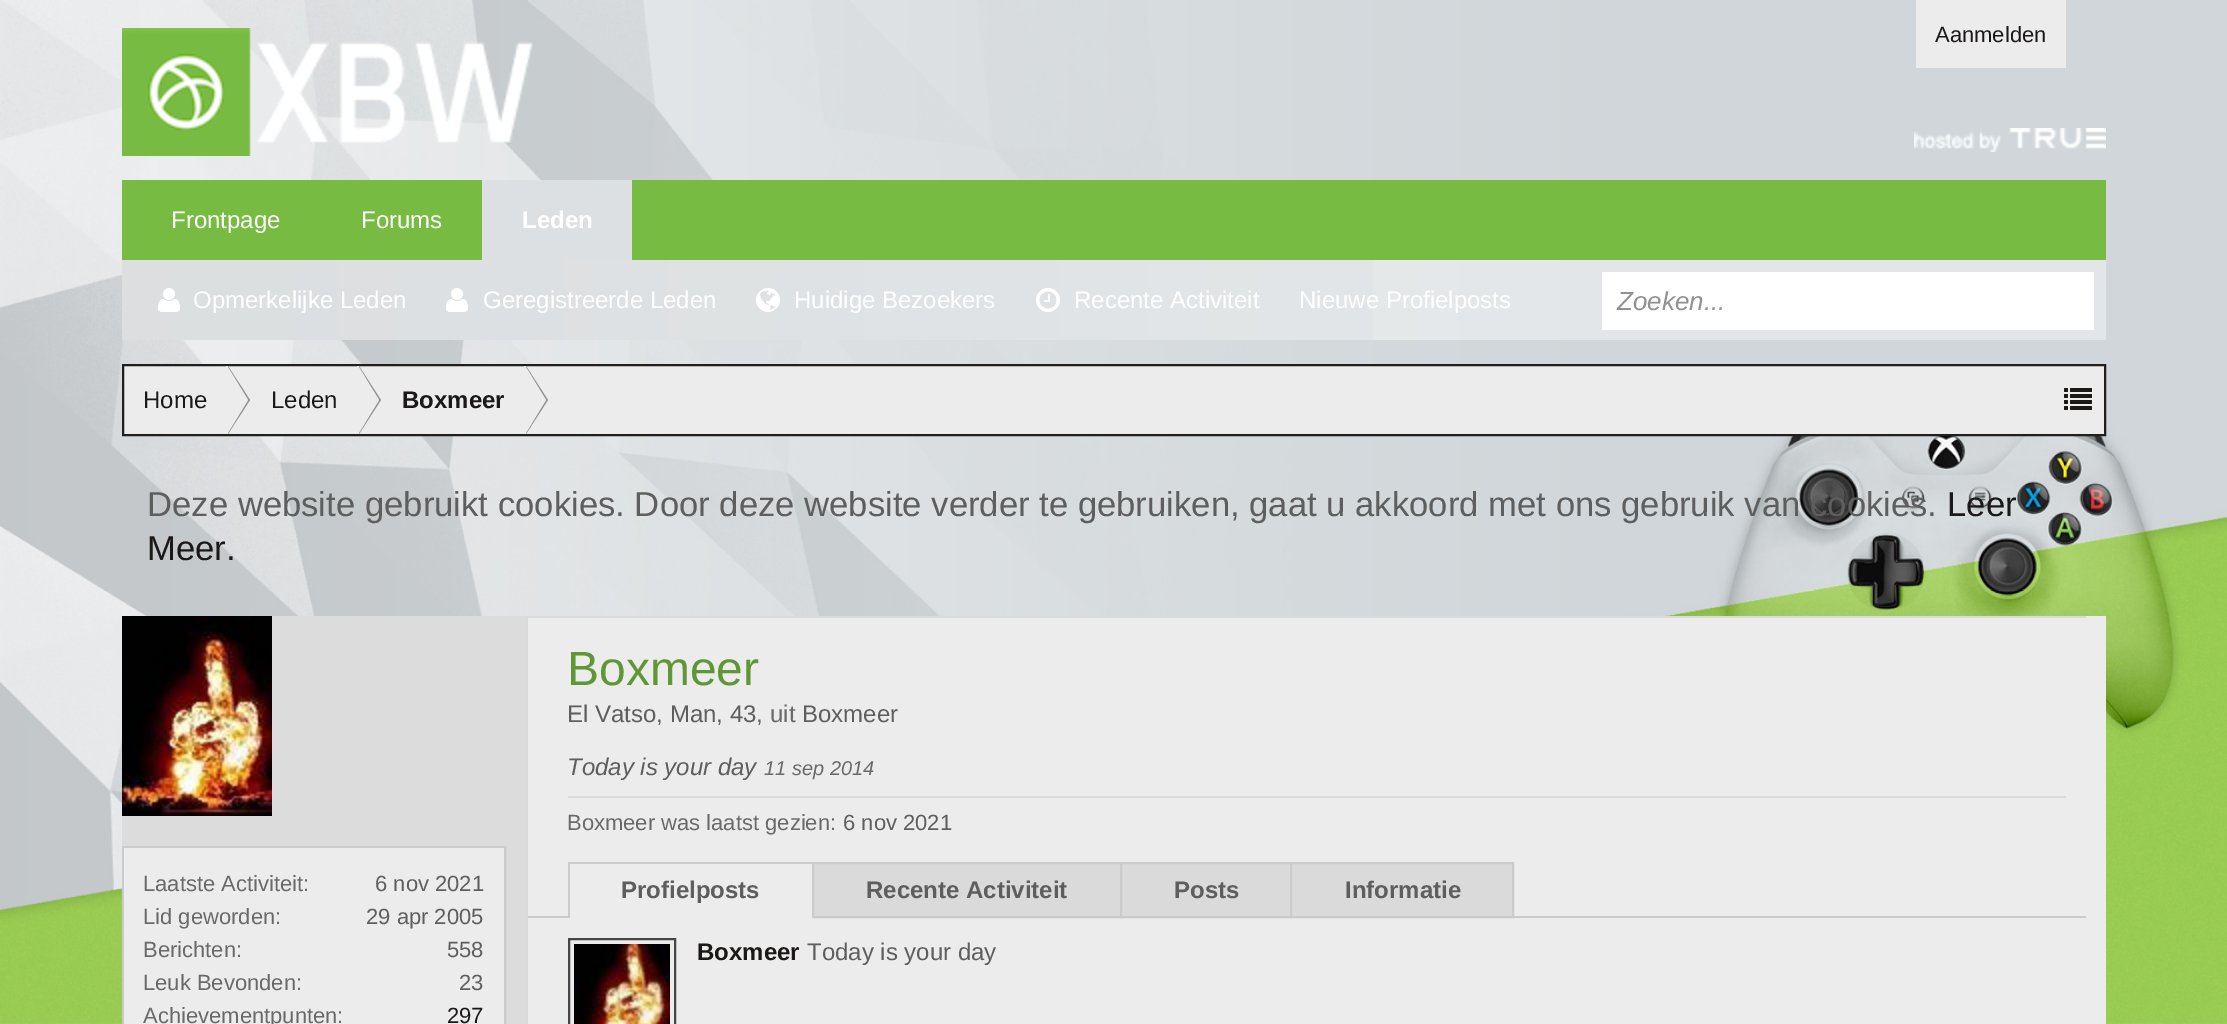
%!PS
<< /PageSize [2227 1024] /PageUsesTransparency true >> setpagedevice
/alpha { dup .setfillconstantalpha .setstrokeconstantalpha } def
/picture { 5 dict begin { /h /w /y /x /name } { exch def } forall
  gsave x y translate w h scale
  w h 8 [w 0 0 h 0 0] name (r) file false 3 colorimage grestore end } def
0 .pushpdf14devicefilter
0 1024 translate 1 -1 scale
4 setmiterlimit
1 setgray
0 0 2227 1024 rectfill
(img12.rgb) 0 1023 2227 1 picture
(img1.rgb) 0 0 2227 1024 picture
0.925 setgray
1916 0 150 68 rectfill
/LiberationSans-Regular [22 0 0 -22 0 0] selectfont
0.106 0.098 0.094 setrgbcolor
1935 42 moveto (Aanmelden) show
(img2.rgb) 122 28 411 128 picture
(img3.rgb) 1914 128 192 24 picture
(img4.rgb) 122 260 1251 80 picture
0.467 0.733 0.263 setrgbcolor
122 180 1984 80 rectfill
0.867 0.878 0.886 setrgbcolor
482 180 150 80 rectfill
/LiberationSans-Bold [24 0 0 -24 0 0] selectfont
1 setgray
522 228 moveto (Leden) show
0.4 alpha
122 260 1984 80 rectfill
1 alpha
(img5.rgb) 158 288 22 24 picture
/LiberationSans-Regular [24 0 0 -24 0 0] selectfont
193 308 moveto (Opmerkelijke Leden) show
(img6.rgb) 446 288 22 24 picture
483 308 moveto (Geregistreerde Leden) show
(img7.rgb) 756 288 24 24 picture
794 308 moveto (Huidige Bezoekers) show
(img8.rgb) 1036 288 24 24 picture
1074 308 moveto (Recente Activiteit) show
1299 308 moveto (Nieuwe Profielposts) show
171 228 moveto (Frontpage) show
361 228 moveto (Forums) show
1602 272 492 58 rectfill
/LiberationSans-Italic [26 0 0 -26 0 0] selectfont
0.569 setgray
1617 310 moveto (Zoeken...) show
0.925 setgray
newpath 123 365 moveto 2105 365 lineto 2105 435 lineto 123 435 lineto closepath gsave fill grestore
0.122 setgray
2 setlinewidth
stroke
/LiberationSans-Regular [24 0 0 -24 0 0] selectfont
0.106 0.098 0.094 setrgbcolor
143 408 moveto (Home) show
0.576 setgray
newpath 228 434 moveto 228 366 lineto 250 400 lineto closepath fill
gsave
124 366 1980 68 rectclip
0.925 setgray
newpath 226 436 moveto 226 364 lineto 248 400 lineto closepath fill
grestore
0.106 0.098 0.094 setrgbcolor
271 408 moveto (Leden) show
0.576 setgray
newpath 359 434 moveto 359 366 lineto 381 400 lineto closepath fill
gsave
124 366 1980 68 rectclip
0.925 setgray
newpath 357 436 moveto 357 364 lineto 379 400 lineto closepath fill
grestore
gsave
402 366 102 68 rectclip
/LiberationSans-Bold [24 0 0 -24 0 0] selectfont
0.106 0.098 0.094 setrgbcolor
402 408 moveto (Boxmeer) show
grestore
newpath 526 434 moveto 526 366 lineto 548 400 lineto closepath fill
gsave
124 366 1980 68 rectclip
0.925 setgray
newpath 524 436 moveto 524 364 lineto 546 400 lineto closepath fill
grestore
(img9.rgb) 2064 388 28 22 picture
/LiberationSans-Regular [34.67 0 0 -34.67 0 0] selectfont
0.369 setgray
147 516 moveto (Deze website gebruikt cookies. Door deze website verder te gebruiken, gaat u akkoord met ons gebruik van cookies.) show
0.106 0.098 0.094 setrgbcolor
1947 516 moveto (Leer) show
147 560 moveto (Meer.) show
0.863 setgray
122 616 404 408 rectfill
(img10.rgb) 122 616 150 200 picture
0.796 setgray
123 847 382 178 rectstroke
0.925 setgray
124 848 380 176 rectfill
/LiberationSans-Regular [22 0 0 -22 0 0] selectfont
0.412 setgray
143 891 moveto (Laatste Activiteit:) show
0.369 setgray
375 891 moveto (6 nov 2021) show
0.412 setgray
143 924 moveto (Lid geworden:) show
0.369 setgray
366 924 moveto (29 apr 2005) show
0.412 setgray
143 957 moveto (Berichten:) show
0.369 setgray
447 957 moveto (558) show
0.412 setgray
143 990 moveto (Leuk Bevonden:) show
0.369 setgray
459 990 moveto (23) show
0.412 setgray
143 1023 moveto (Achievementpunten:) show
0.106 0.098 0.094 setrgbcolor
447 1023 moveto (297) show
0.925 setgray
528 616 1578 408 rectfill
0.855 setgray
526 616 2 408 rectfill
528 616 1558 2 rectfill
/LiberationSans-Regular [48 0 0 -48 0 0] selectfont
0.373 0.588 0.212 setrgbcolor
567 685 moveto (Boxmeer) show
/LiberationSans-Regular [24 0 0 -24 0 0] selectfont
0.369 setgray
567 722 moveto (El Vatso, Man, 43,) show
0.412 setgray
770 722 moveto (uit) show
0.369 setgray
802 722 moveto (Boxmeer) show
/LiberationSans-Italic [24 0 0 -24 0 0] selectfont
567 775 moveto (Today is your day) show
/LiberationSans-Italic [20 0 0 -20 0 0] selectfont
0.412 setgray
764 775 moveto (11 sep 2014) show
0.855 setgray
568 796 1498 2 rectfill
/LiberationSans-Regular [22 0 0 -22 0 0] selectfont
0.412 setgray
567 830 moveto (Boxmeer was laatst gezien:) show
0.369 setgray
843 830 moveto (6 nov 2021) show
0.796 setgray
528 916 1558 2 rectfill
0.925 setgray
570 916 242 2 rectfill
0.796 setgray
568 862 246 2 rectfill
568 862 2 56 rectfill
/LiberationSans-Bold [24 0 0 -24 0 0] selectfont
0.369 setgray
621 898 moveto (Profielposts) show
0.855 setgray
newpath 813 863 moveto 1121 863 lineto 1121 917 lineto 813 917 lineto closepath gsave fill grestore
0.796 setgray
stroke
0.369 setgray
866 898 moveto (Recente Activiteit) show
0.855 setgray
newpath 1121 863 moveto 1291 863 lineto 1291 917 lineto 1121 917 lineto closepath gsave fill grestore
0.796 setgray
stroke
0.369 setgray
1174 898 moveto (Posts) show
0.855 setgray
newpath 1291 863 moveto 1513 863 lineto 1513 917 lineto 1291 917 lineto closepath gsave fill grestore
0.796 setgray
stroke
0.369 setgray
1345 898 moveto (Informatie) show
0.275 setgray
569 939 106 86 rectstroke
(img11.rgb) 574 944 96 80 picture
0.106 0.098 0.094 setrgbcolor
697 960 moveto (Boxmeer) show
/LiberationSans-Regular [24 0 0 -24 0 0] selectfont
0.369 setgray
807 960 moveto (Today is your day) show
.poppdf14devicefilter showpage
